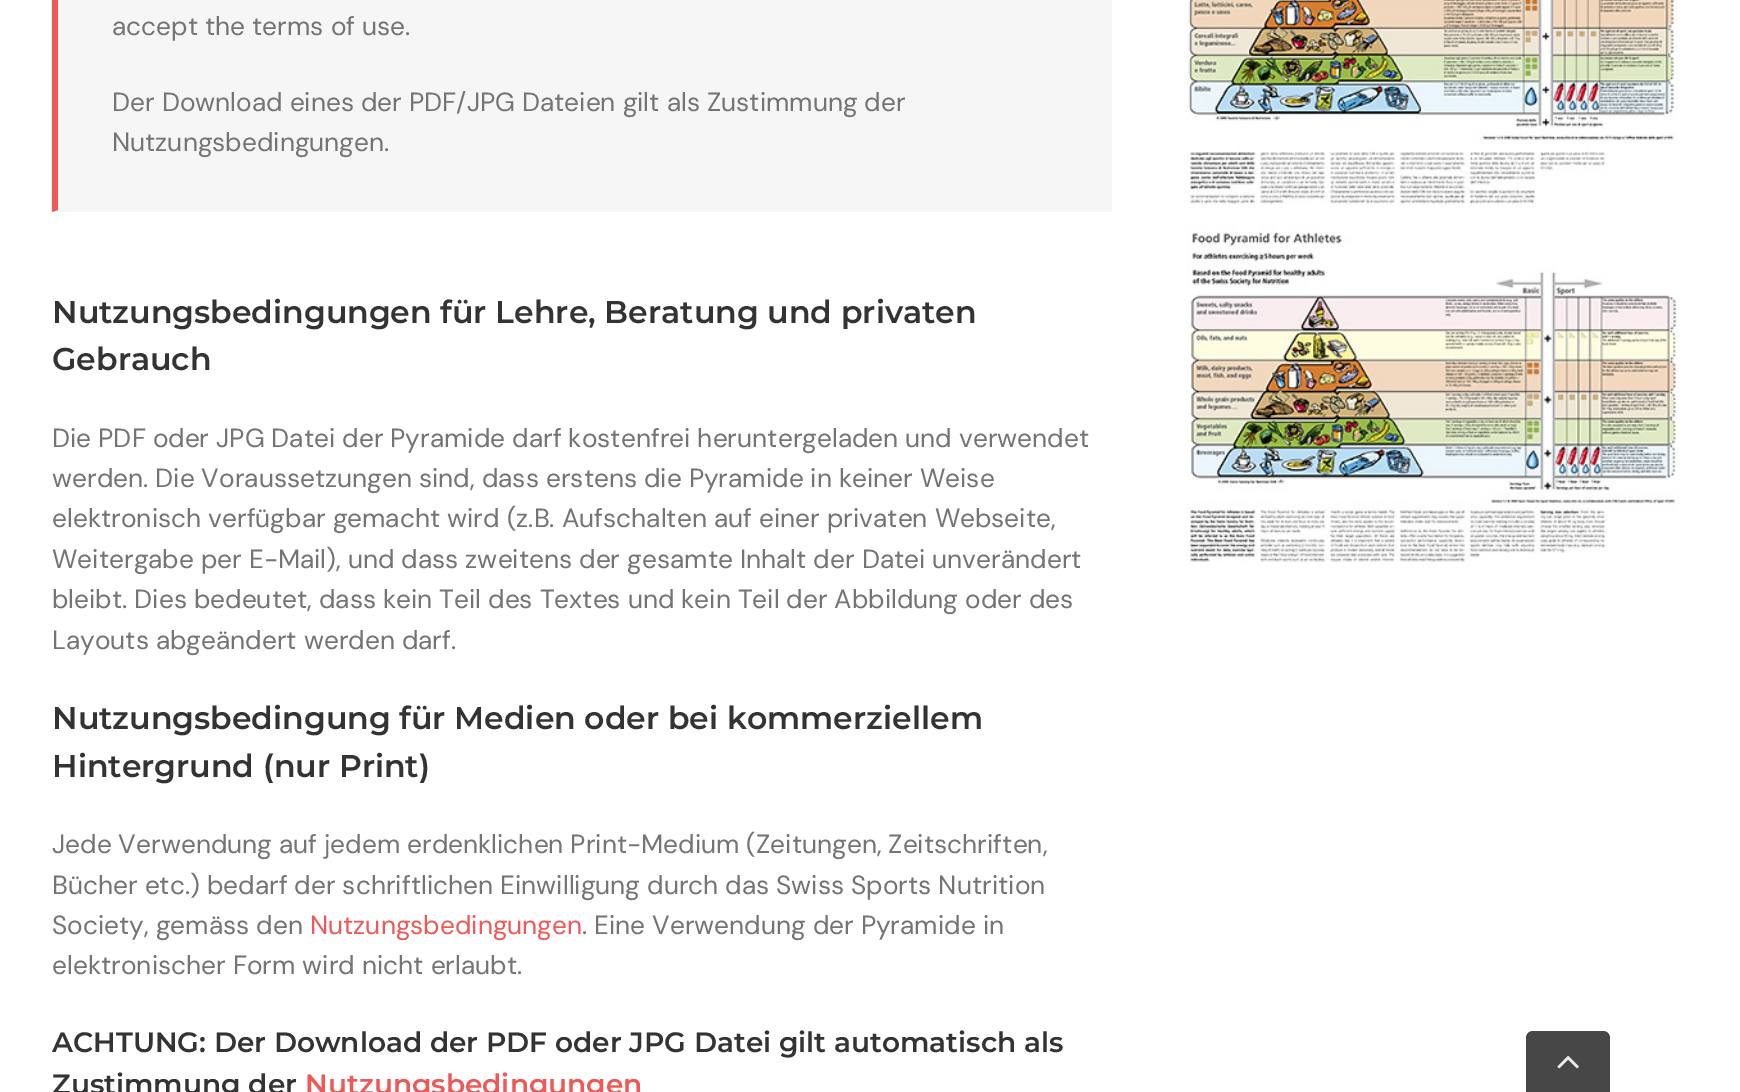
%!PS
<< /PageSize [1740 1092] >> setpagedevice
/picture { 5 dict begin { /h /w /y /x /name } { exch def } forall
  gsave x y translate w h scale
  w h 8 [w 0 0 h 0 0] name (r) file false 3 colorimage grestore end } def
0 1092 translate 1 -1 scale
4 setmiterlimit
1 setgray
0 0 1740 1092 rectfill
0.965 setgray
58 0 1052 210 rectfill
1110 0 2 212 rectfill
newpath 1111 212 moveto 52 212 lineto 58 210 lineto 1110 210 lineto closepath fill
0.941 0.345 0.345 setrgbcolor
newpath 52 212 moveto 52 -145 lineto 58 -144 lineto 58 210 lineto closepath fill
/DMSans-Regular [26.25 0 0 -26.25 0 0] selectfont
0.455 setgray
112 35 moveto (accept the terms of use.) show
112 111 moveto (Der Download eines der PDF/JPG Dateien gilt als Zustimmung der) show
112 151 moveto (Nutzungsbedingungen.) show
/Montserrat-Thin [31.5 0 0 -31.5 0 0] selectfont
0.2 setgray
52 323 moveto (Nutzungsbedingungen für Lehre, Beratung und privaten) show
52 370 moveto (Gebrauch) show
/DMSans-Regular [26.25 0 0 -26.25 0 0] selectfont
0.455 setgray
52 447 moveto (Die PDF oder JPG Datei der Pyramide darf kostenfrei heruntergeladen und verwendet) show
52 487 moveto (werden. Die Voraussetzungen sind, dass erstens die Pyramide in keiner Weise) show
52 527 moveto (elektronisch verfügbar gemacht wird \(z.B. Aufschalten auf einer privaten Webseite,) show
52 568 moveto (Weitergabe per E-Mail\), und dass zweitens der gesamte Inhalt der Datei unverändert) show
52 608 moveto (bleibt. Dies bedeutet, dass kein Teil des Textes und kein Teil der Abbildung oder des) show
52 649 moveto (Layouts abgeändert werden darf.) show
/Montserrat-Thin [31.5 0 0 -31.5 0 0] selectfont
0.2 setgray
52 729 moveto (Nutzungsbedingung für Medien oder bei kommerziellem) show
52 777 moveto (Hintergrund \(nur Print\)) show
/DMSans-Regular [26.25 0 0 -26.25 0 0] selectfont
0.455 setgray
52 853 moveto (Jede Verwendung auf jedem erdenklichen Print-Medium \(Zeitungen, Zeitschriften,) show
52 894 moveto (Bücher etc.\) bedarf der schriftlichen Einwilligung durch das Swiss Sports Nutrition) show
52 934 moveto (Society, gemäss den) show
0.941 0.345 0.345 setrgbcolor
310 934 moveto (Nutzungsbedingungen) show
0.455 setgray
582 934 moveto (. Eine Verwendung der Pyramide in) show
52 974 moveto (elektronischer Form wird nicht erlaubt.) show
/Montserrat-Thin [28 0 0 -28 0 0] selectfont
0.2 setgray
52 1052 moveto (ACHTUNG: Der Download der PDF oder JPG Datei gilt automatisch als) show
52 1094 moveto (Zustimmung der) show
0.941 0.345 0.345 setrgbcolor
305 1094 moveto (Nutzungsbedingungen) show
(img1.rgb) 1186 0 492 562 picture
0.278 setgray
newpath 1533 1031 moveto 1603 1031 lineto 1607 1031 1610 1034 1610 1038 curveto 1610 1092 lineto 1526 1092 lineto 1526 1038 lineto 1526 1034 1529 1031 1533 1031 curveto closepath fill
(img2.rgb) 1557 1056 22 13 picture
showpage
